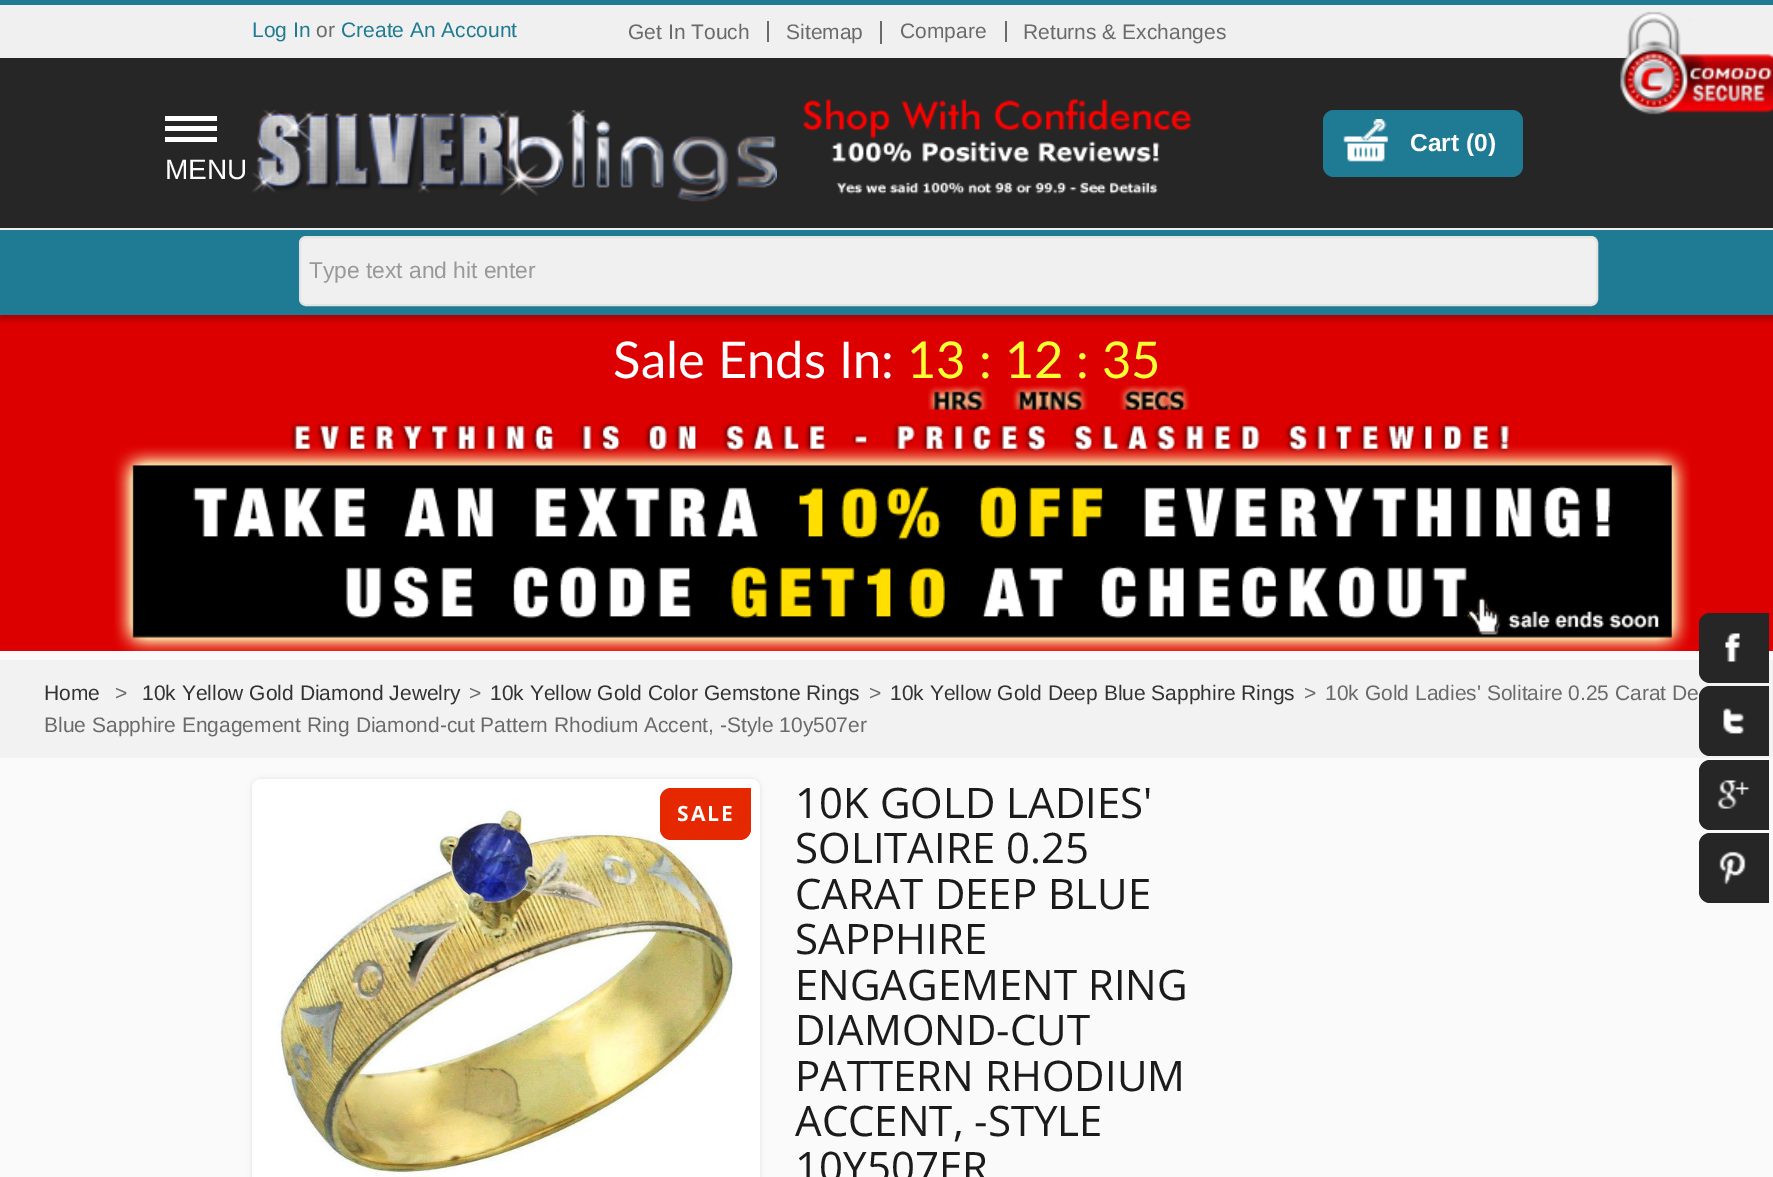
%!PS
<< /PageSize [1773 1177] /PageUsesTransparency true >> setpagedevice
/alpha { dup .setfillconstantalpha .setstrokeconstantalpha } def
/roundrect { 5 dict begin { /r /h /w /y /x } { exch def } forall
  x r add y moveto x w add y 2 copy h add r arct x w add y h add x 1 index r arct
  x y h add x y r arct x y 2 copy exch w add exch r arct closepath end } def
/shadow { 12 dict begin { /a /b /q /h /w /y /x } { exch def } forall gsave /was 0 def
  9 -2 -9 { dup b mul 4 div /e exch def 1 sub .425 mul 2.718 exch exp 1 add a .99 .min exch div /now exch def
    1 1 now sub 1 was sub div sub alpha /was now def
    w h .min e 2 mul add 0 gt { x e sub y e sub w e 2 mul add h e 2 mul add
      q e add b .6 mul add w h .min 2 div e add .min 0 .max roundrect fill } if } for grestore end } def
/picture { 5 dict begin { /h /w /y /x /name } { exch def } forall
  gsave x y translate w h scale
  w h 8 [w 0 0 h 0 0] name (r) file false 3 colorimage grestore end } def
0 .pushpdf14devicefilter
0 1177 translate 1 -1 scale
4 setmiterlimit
0.98 setgray
0 0 1773 1177 rectfill
0.867 0 0 setrgbcolor
0 315 1773 336 rectfill
0 setgray
0 5 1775 315 0 2.5 0.2 shadow
0.149 setgray
0 58 1773 170 rectfill
0.933 setgray
0 228 1773 2 rectfill
0.941 setgray
0 5 1773 53 rectfill
0.122 0.478 0.576 setrgbcolor
0 0 1773 5 rectfill
(img1.rgb) 1620 11 153 104 picture
/LiberationSans-Regular [21 0 0 -21 0 0] selectfont
252 37 moveto (Log In) show
0.416 setgray
316 37 moveto (or) show
0.122 0.478 0.576 setrgbcolor
341 37 moveto (Create An Account) show
1323 110 200 67 11 roundrect fill
(img2.rgb) 1343 119 45 43 picture
/LiberationSans-Bold [24.5 0 0 -24.5 0 0] selectfont
1 setgray
1410 151 moveto (Cart \(0\)) show
/LiberationSans-Regular [21 0 0 -21 0 0] selectfont
0.416 setgray
628 39 moveto (Get In Touch) show
767 21 2 21 rectfill
786 39 moveto (Sitemap) show
880 21 2 23 rectfill
900 38 moveto (Compare) show
1005 21 2 21 rectfill
1023 39 moveto (Returns & Exchanges) show
1 setgray
165 116 52 5 rectfill
165 126 52 5 rectfill
165 137 52 5 rectfill
/LiberationSans-Regular [28 0 0 -28 0 0] selectfont
165 179 moveto (MENU) show
(img3.rgb) 252 110 525 92 picture
(img4.rgb) 803 99 389 95 picture
0.122 0.478 0.576 setrgbcolor
0 230 1773 85 rectfill
0.941 setgray
300 237 1297 68 6 roundrect gsave fill grestore
0.894 0.894 0.886 setrgbcolor
2 setlinewidth
stroke
/LiberationSans-Regular [22.75 0 0 -22.75 0 0] selectfont
0.6 setgray
309 278 moveto (Type text and hit enter) show
(img5.rgb) 928 385 262 25 picture
/Lato-Regular [50.75 0 0 -50.75 0 0] selectfont
1 setgray
613 378 moveto (Sale Ends In:) show
1 1 0.2 setrgbcolor
907 378 moveto (13 : 12 : 35) show
(img6.rgb) 114 421 1577 230 picture
0.949 setgray
0 660 1773 98 rectfill
/LiberationSans-Regular [21 0 0 -21 0 0] selectfont
0.2 setgray
44 700 moveto (Home) show
0.416 setgray
115 700 moveto (>) show
0.2 setgray
142 700 moveto (10k Yellow Gold Diamond Jewelry) show
0.416 setgray
469 700 moveto (>) show
0.2 setgray
490 700 moveto (10k Yellow Gold Color Gemstone Rings) show
0.416 setgray
869 700 moveto (>) show
0.2 setgray
890 700 moveto (10k Yellow Gold Deep Blue Sapphire Rings) show
0.416 setgray
1304 700 moveto (>) show
1325 700 moveto (10k Gold Ladies' Solitaire 0.25 Carat De) show
44 732 moveto (Blue Sapphire Engagement Ring Diamond-cut Pattern Rhodium Accent, -Style 10y507er) show
0.867 setgray
252 779 508 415 9 2.5 1 shadow
1 setgray
252 779 508 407 9 roundrect fill
(img7.rgb) 278 808 458 369 picture
0.902 0.157 0 setrgbcolor
newpath 671 788 moveto 751 788 lineto 751 829 lineto 751 835 746 840 740 840 curveto 671 840 lineto 665 840 660 835 660 829 curveto 660 799 lineto 660 793 665 788 671 788 curveto closepath fill
/OpenSans-Bold [21 0 0 -21 0 0] selectfont
1 setgray
677 821 moveto 2 0 (SALE) ashow
/OpenSans-Regular [42 0 0 -42 0 0] selectfont
0.106 setgray
795 818 moveto (10K GOLD LADIES') show
795 863 moveto (SOLITAIRE 0.25) show
795 909 moveto (CARAT DEEP BLUE) show
795 954 moveto (SAPPHIRE) show
795 1000 moveto (ENGAGEMENT RING) show
795 1045 moveto (DIAMOND-CUT) show
795 1091 moveto (PATTERN RHODIUM) show
795 1136 moveto (ACCENT, -STYLE) show
795 1182 moveto (10Y507ER) show
0.149 setgray
newpath 1710 613 moveto 1769 613 lineto 1769 683 lineto 1710 683 lineto 1704 683 1699 678 1699 672 curveto 1699 624 lineto 1699 618 1704 613 1710 613 curveto closepath fill
(img8.rgb) 1725 633 15 29 picture
newpath 1710 686 moveto 1769 686 lineto 1769 756 lineto 1710 756 lineto 1704 756 1699 751 1699 745 curveto 1699 697 lineto 1699 691 1704 686 1710 686 curveto closepath fill
(img9.rgb) 1723 708 22 26 picture
newpath 1710 760 moveto 1769 760 lineto 1769 830 lineto 1710 830 lineto 1704 830 1699 825 1699 819 curveto 1699 771 lineto 1699 765 1704 760 1710 760 curveto closepath fill
(img10.rgb) 1717 780 33 29 picture
newpath 1710 833 moveto 1769 833 lineto 1769 903 lineto 1710 903 lineto 1704 903 1699 898 1699 892 curveto 1699 844 lineto 1699 838 1704 833 1710 833 curveto closepath fill
(img11.rgb) 1719 851 27 34 picture
.poppdf14devicefilter showpage
